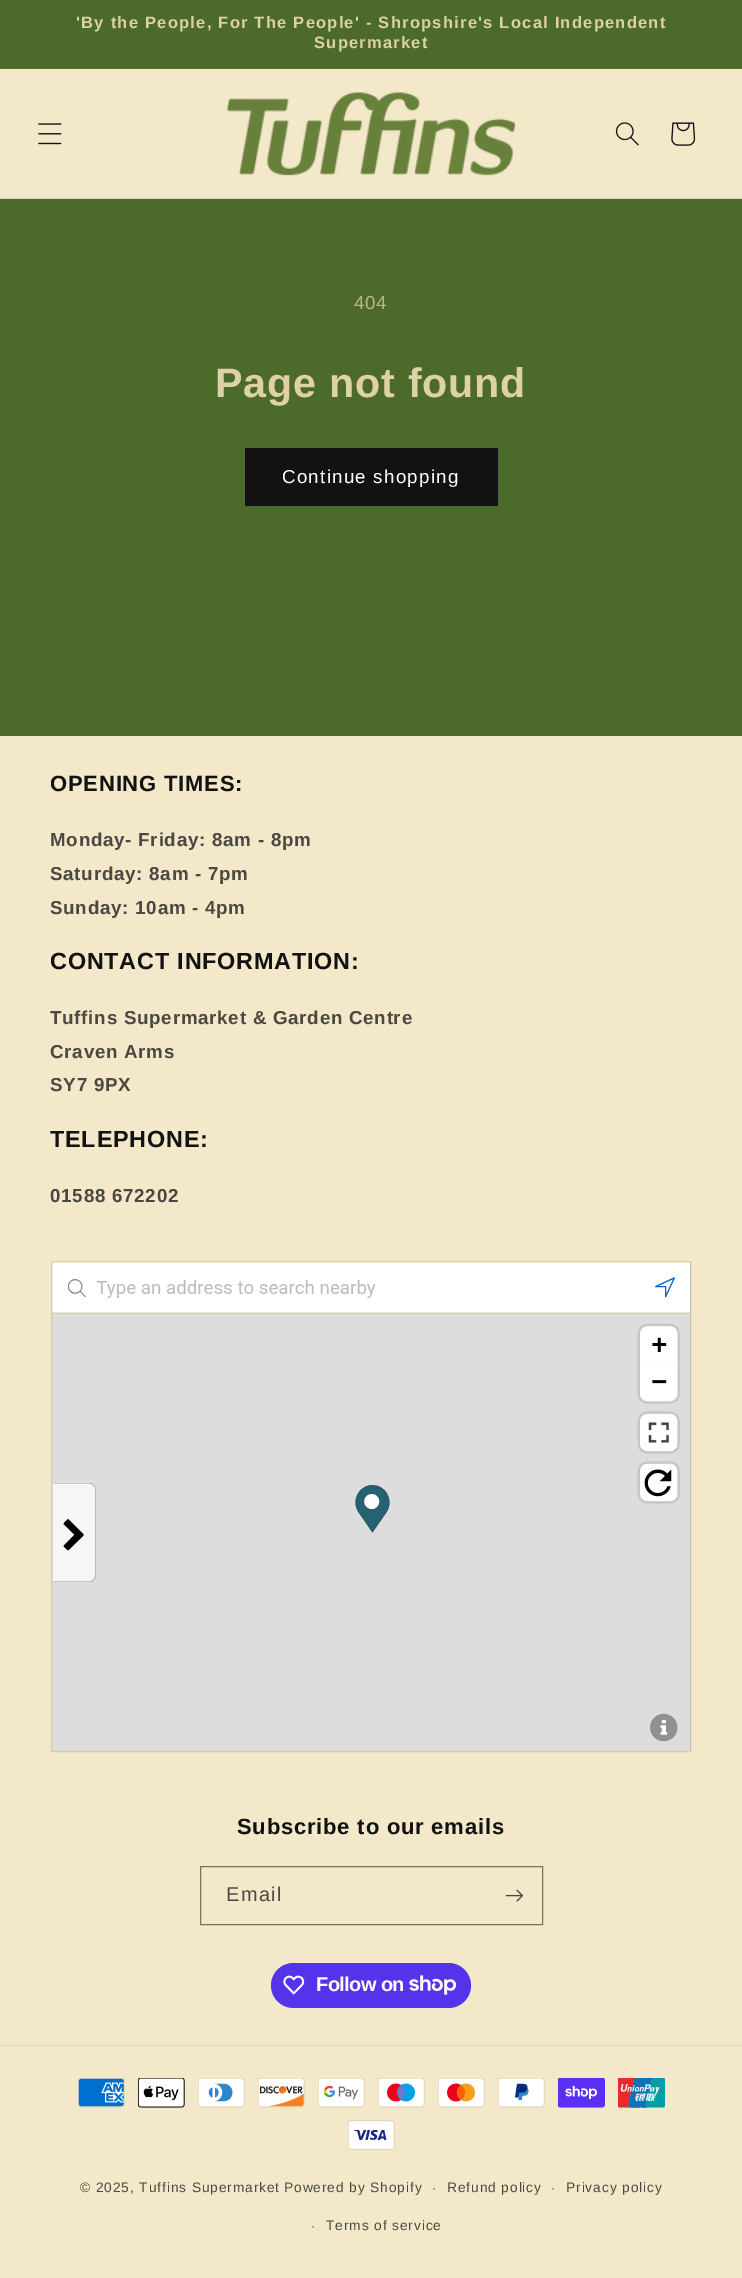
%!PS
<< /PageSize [742 2278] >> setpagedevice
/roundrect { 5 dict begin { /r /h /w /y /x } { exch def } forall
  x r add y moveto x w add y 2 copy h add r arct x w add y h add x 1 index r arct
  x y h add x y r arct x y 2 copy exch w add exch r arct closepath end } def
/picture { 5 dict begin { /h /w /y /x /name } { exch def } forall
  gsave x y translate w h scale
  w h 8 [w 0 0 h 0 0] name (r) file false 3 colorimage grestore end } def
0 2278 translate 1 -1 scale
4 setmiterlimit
0.298 0.416 0.165 setrgbcolor
0 0 742 2278 rectfill
0.345 0.447 0.204 setrgbcolor
0 68 742 1 rectfill
/LiberationSans-Bold [16.5 0 0 -16.5 0 0] selectfont
0.875 0.82 0.655 setrgbcolor
76 28 moveto 1.25 0 ('By the People, For The People' - Shropshire's Local Independent) ashow
314 48 moveto 1.25 0 (Supermarket) ashow
0.953 0.91 0.792 setrgbcolor
0 69 742 129 rectfill
0.882 0.843 0.733 setrgbcolor
0 198 742 1 rectfill
(img1.rgb) 38 123 24 22 picture
(img2.rgb) 227 92 288 84 picture
(img3.rgb) 615 122 24 24 picture
(img4.rgb) 671 122 25 24 picture
/LiberationSans-Regular [18.75 0 0 -18.75 0 0] selectfont
0.729 0.718 0.533 setrgbcolor
354 309 moveto 0.75 0 (404) ashow
/LiberationSans-Bold [41.25 0 0 -41.25 0 0] selectfont
0.875 0.82 0.655 setrgbcolor
215 397 moveto 0.8 0 (Page not found) ashow
0.071 setgray
245 448 253 58 rectfill
/LiberationSans-Regular [18.75 0 0 -18.75 0 0] selectfont
1 setgray
282 483 moveto 1.25 0 (Continue shopping) ashow
0.953 0.91 0.792 setrgbcolor
0 736 742 1542 rectfill
/LiberationSans-Bold [22 0 0 -22 0 0] selectfont
0.071 setgray
50 791 moveto 0.8 0 (OPENING TIMES:) ashow
/LiberationSans-Bold [18.75 0 0 -18.75 0 0] selectfont
0.29 0.282 0.251 setrgbcolor
50 846 moveto 0.75 0 (Monday- Friday: 8am - 8pm) ashow
50 880 moveto 0.75 0 (Saturday: 8am - 7pm) ashow
50 914 moveto 0.75 0 (Sunday: 10am - 4pm) ashow
/LiberationSans-Bold [23.4 0 0 -23.4 0 0] selectfont
0.071 setgray
50 969 moveto 0.8 0 (CONTACT INFORMATION:) ashow
/LiberationSans-Bold [18.75 0 0 -18.75 0 0] selectfont
0.29 0.282 0.251 setrgbcolor
50 1024 moveto 0.75 0 (Tuffins Supermarket & Garden Centre) ashow
50 1058 moveto 0.75 0 (Craven Arms) ashow
50 1091 moveto 0.75 0 (SY7 9PX) ashow
/LiberationSans-Bold [23.4 0 0 -23.4 0 0] selectfont
0.071 setgray
50 1147 moveto 0.8 0 (TELEPHONE:) ashow
/LiberationSans-Bold [18.75 0 0 -18.75 0 0] selectfont
0.29 0.282 0.251 setrgbcolor
50 1202 moveto 0.75 0 (01588 672202) ashow
(img5.rgb) 51 1261 641 492 picture
/LiberationSans-Bold [22 0 0 -22 0 0] selectfont
0.071 setgray
237 1834 moveto 0.8 0 (Subscribe to our emails) ashow
0.467 0.447 0.396 setrgbcolor
200.5 1866.5 342 58 rectstroke
/LiberationSans-Regular [20 0 0 -20 0 0] selectfont
0.29 0.282 0.251 setrgbcolor
226 1901 moveto 1.25 0 (Email) ashow
(img6.rgb) 505 1889 18 13 picture
0.329 0.2 0.922 setrgbcolor
271 1963 200 45 22.5 roundrect fill
(img7.rgb) 283 1975 22 20 picture
/LiberationSans-Bold [20 0 0 -20 0 0] selectfont
1 setgray
316 1991 moveto -0.6 0 (Follow on) ashow
(img8.rgb) 409 1975 47 20 picture
0.882 0.843 0.733 setrgbcolor
0 2045 742 1 rectfill
(img9.rgb) 78 2078 47 30 picture
(img10.rgb) 138 2078 47 30 picture
(img11.rgb) 198 2078 47 30 picture
(img12.rgb) 258 2078 47 30 picture
(img13.rgb) 318 2078 47 30 picture
(img14.rgb) 378 2078 47 30 picture
(img15.rgb) 438 2078 47 30 picture
(img16.rgb) 498 2078 47 30 picture
(img17.rgb) 558 2078 47 30 picture
(img18.rgb) 618 2078 47 30 picture
(img19.rgb) 348 2120 47 30 picture
/LiberationSans-Regular [13.75 0 0 -13.75 0 0] selectfont
0.29 0.282 0.251 setrgbcolor
80 2192 moveto 0.9 0 (© 2025, Tuffins Supermarket) ashow
284 2192 moveto 0.9 0 (Powered by Shopify) ashow
/LiberationSans-Regular [12 0 0 -12 0 0] selectfont
432 2192 moveto 0.9 0 (·) ashow
/LiberationSans-Regular [13.75 0 0 -13.75 0 0] selectfont
447 2192 moveto 0.9 0 (Refund policy) ashow
/LiberationSans-Regular [12 0 0 -12 0 0] selectfont
551 2192 moveto 0.9 0 (·) ashow
/LiberationSans-Regular [13.75 0 0 -13.75 0 0] selectfont
566 2192 moveto 0.9 0 (Privacy policy) ashow
/LiberationSans-Regular [12 0 0 -12 0 0] selectfont
311 2230 moveto 0.9 0 (·) ashow
/LiberationSans-Regular [13.75 0 0 -13.75 0 0] selectfont
326 2230 moveto 0.9 0 (Terms of service) ashow
showpage
